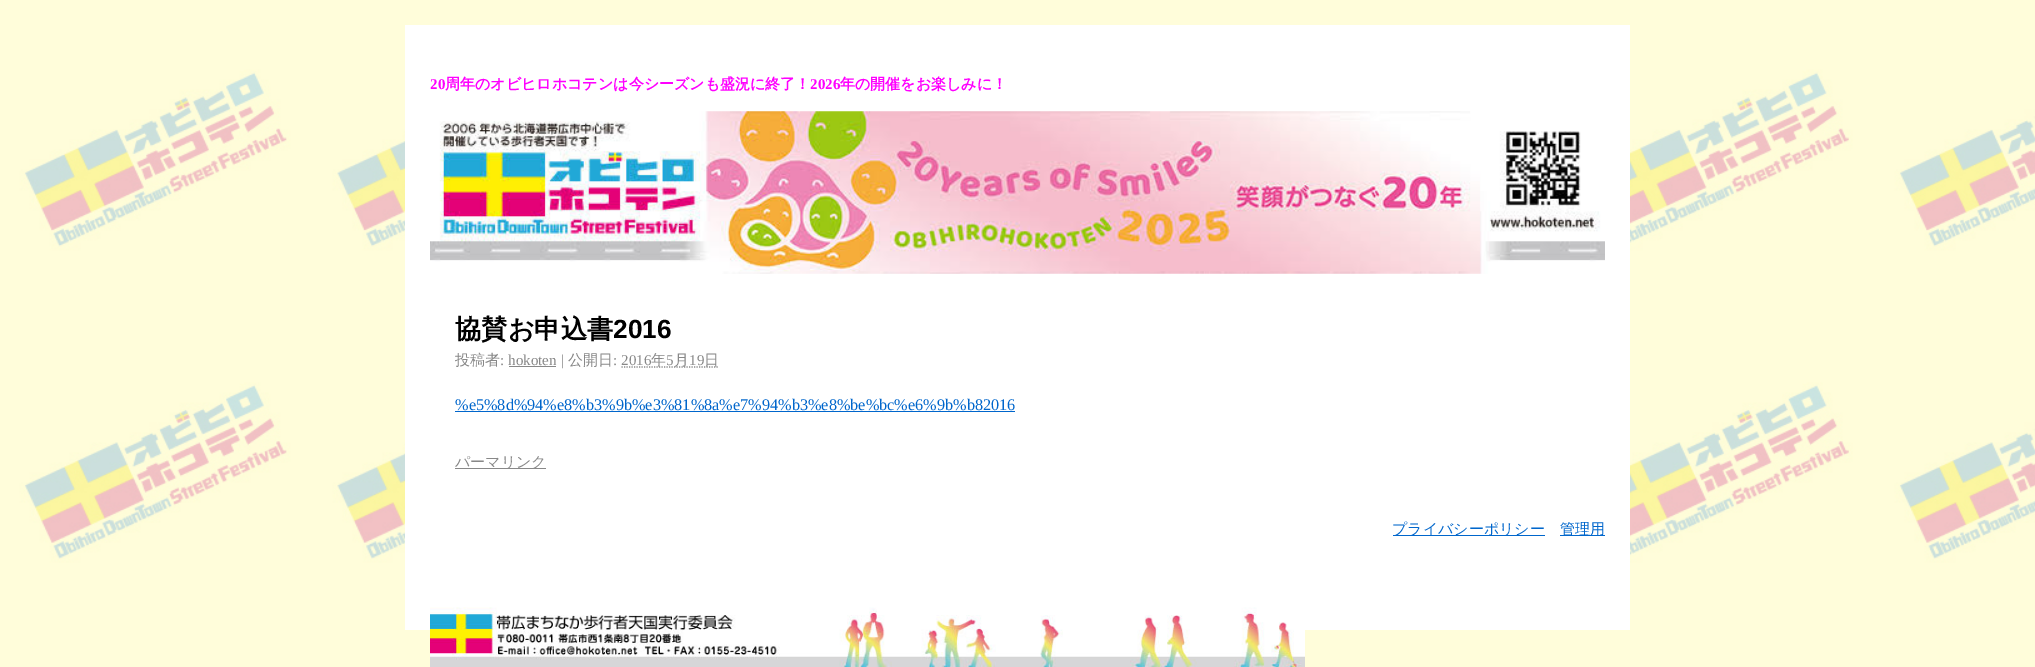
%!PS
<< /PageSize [2035 667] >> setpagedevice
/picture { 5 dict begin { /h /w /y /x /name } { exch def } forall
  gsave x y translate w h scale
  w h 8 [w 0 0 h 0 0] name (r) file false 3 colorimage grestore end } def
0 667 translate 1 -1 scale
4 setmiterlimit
1 setgray
0 0 2035 667 rectfill
(img1.rgb) 0 0 2035 667 picture
405 25 1225 605 rectfill
/LiberationSerif-Bold [15 0 0 -15 0 0] selectfont
1 0 1 setrgbcolor
430 89 moveto (20) show
/WenQuanYiZenHei-Bold [15 0 0 -15 0 0] selectfont
445 89 moveto (周年のオビヒロホコテンは今シーズンも盛況に終了！) show
/LiberationSerif-Bold [15 0 0 -15 0 0] selectfont
810 89 moveto (2026) show
/WenQuanYiZenHei-Bold [15 0 0 -15 0 0] selectfont
840 89 moveto (年の開催をお楽しみに！) show
(img2.rgb) 430 111 1175 163 picture
/WenQuanYiZenHei-Bold [26.25 0 0 -26.25 0 0] selectfont
0 setgray
455 338 moveto (協賛お申込書) show
/LiberationSans-Bold [26.25 0 0 -26.25 0 0] selectfont
613 338 moveto (2016) show
/WenQuanYiZenHei-Medium [15 0 0 -15 0 0] selectfont
0.533 setgray
455 365 moveto (投稿者) show
/LiberationSerif-Regular [15 0 0 -15 0 0] selectfont
500 365 moveto (:) show
508 365 moveto (hokoten) show
509 366 47 1 rectfill
561 365 moveto (|) show
/WenQuanYiZenHei-Medium [15 0 0 -15 0 0] selectfont
568 365 moveto (公開日) show
/LiberationSerif-Regular [15 0 0 -15 0 0] selectfont
613 365 moveto (:) show
621 365 moveto (2016) show
1.2 setlinewidth
[1.25 1.25] 0 setdash
newpath 621.5 367 moveto 719 367 lineto stroke
/WenQuanYiZenHei-Medium [15 0 0 -15 0 0] selectfont
651 365 moveto (年) show
/LiberationSerif-Regular [15 0 0 -15 0 0] selectfont
666 365 moveto (5) show
/WenQuanYiZenHei-Medium [15 0 0 -15 0 0] selectfont
674 365 moveto (月) show
/LiberationSerif-Regular [15 0 0 -15 0 0] selectfont
689 365 moveto (19) show
/WenQuanYiZenHei-Medium [15 0 0 -15 0 0] selectfont
704 365 moveto (日) show
/LiberationSerif-Regular [16.25 0 0 -16.25 0 0] selectfont
0 0.4 0.8 setrgbcolor
455 410 moveto (%e5%8d%94%e8%b3%9b%e3%81%8a%e7%94%b3%e8%be%bc%e6%9b%b82016) show
455 411 560 1 rectfill
0.533 setgray
455 468 91 1 rectfill
/WenQuanYiZenHei-Medium [15 0 0 -15 0 0] selectfont
455 467 moveto (パーマリンク) show
0 0.4 0.8 setrgbcolor
1393 535 152 1 rectfill
1392 534 moveto (プライバシーポリシー) show
1560 535 45 1 rectfill
1560 534 moveto (管理用) show
(img3.rgb) 430 607 875 60 picture
showpage
